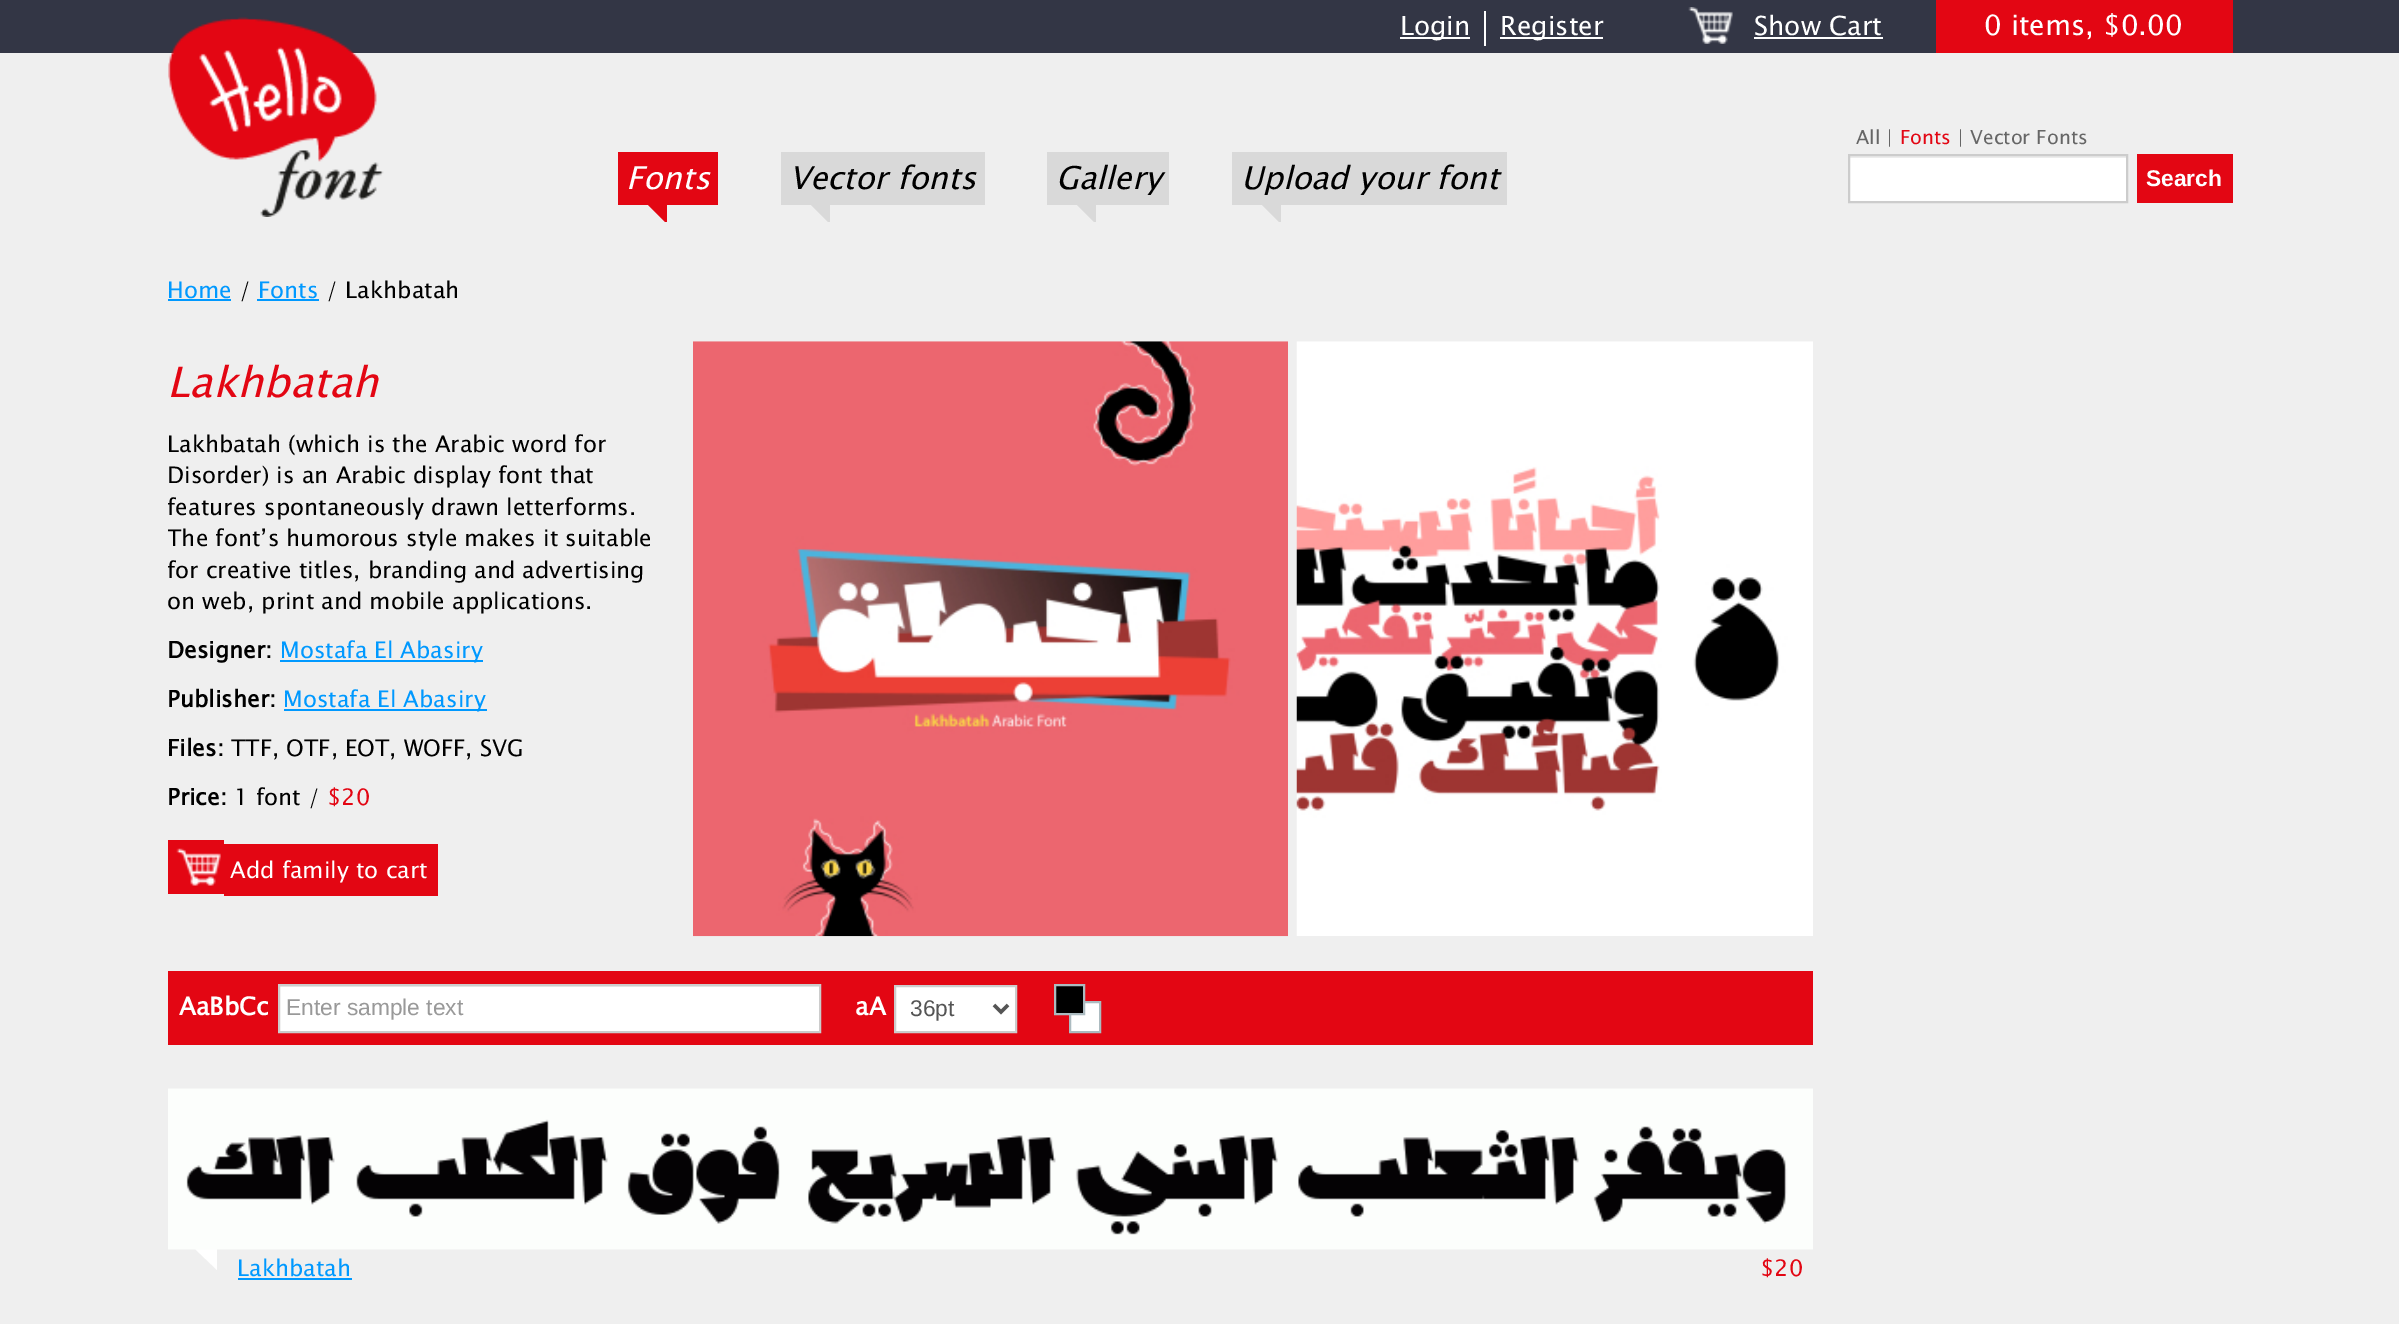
%!PS
<< /PageSize [2399 1324] >> setpagedevice
/picture { 5 dict begin { /h /w /y /x /name } { exch def } forall
  gsave x y translate w h scale
  w h 8 [w 0 0 h 0 0] name (r) file false 3 colorimage grestore end } def
0 1324 translate 1 -1 scale
4 setmiterlimit
0.937 setgray
0 0 2399 1324 rectfill
0.2 0.212 0.271 setrgbcolor
0 0 2399 53 rectfill
(img1.rgb) 168 17 216 200 picture
1 setgray
1484 11 2 35 rectfill
1400 37 70 2 rectfill
/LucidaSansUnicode-Regular [26.25 0 0 -26.25 0 0] selectfont
1400 35 moveto (Login) show
1500 37 103 2 rectfill
1500 35 moveto (Register) show
(img2.rgb) 1688 7 45 37 picture
1754 35 moveto (Show Cart) show
1754 37 129 2 rectfill
0.89 0.024 0.075 setrgbcolor
1936 0 297 53 rectfill
/LucidaSansUnicode-Regular [28 0 0 -28 0 0] selectfont
1 setgray
1984 35 moveto (0 items, $0.00) show
0.89 0.024 0.075 setrgbcolor
618 152 100 53 rectfill
gsave
478 53 1755 169 rectclip
newpath 667 178 moveto 667 224 lineto 644 201 lineto closepath fill
grestore
/LucidaSansUnicode-Italic [31.5 0 0 -31.5 0 0] selectfont
1 setgray
626 189 moveto (Fonts) show
0.851 setgray
781 152 204 53 rectfill
gsave
478 53 1755 169 rectclip
newpath 830 178 moveto 830 224 lineto 807 201 lineto closepath fill
grestore
0 setgray
789 189 moveto (Vector fonts) show
0.851 setgray
1047 152 122 53 rectfill
gsave
478 53 1755 169 rectclip
newpath 1096 178 moveto 1096 224 lineto 1073 201 lineto closepath fill
grestore
0 setgray
1056 189 moveto (Gallery) show
0.851 setgray
1232 152 275 53 rectfill
gsave
478 53 1755 169 rectclip
newpath 1281 178 moveto 1281 224 lineto 1258 201 lineto closepath fill
grestore
0 setgray
1241 189 moveto (Upload your font) show
/LucidaSansUnicode-Regular [19.25 0 0 -19.25 0 0] selectfont
0.4 setgray
1856 144 moveto (All |) show
0.89 0.024 0.075 setrgbcolor
1900 144 moveto (Fonts) show
0.4 setgray
1957 144 moveto (| Vector Fonts) show
1 setgray
1850 158 276 43 rectfill
0.925 setgray
1850 156 276 2 rectfill
0.8 setgray
2 setlinewidth
1849 155 278 47 rectstroke
0.89 0.024 0.075 setrgbcolor
2137 154 96 49 rectfill
/LiberationSans-Bold [22.75 0 0 -22.75 0 0] selectfont
1 setgray
2146 186 moveto (Search) show
/LucidaSansUnicode-Regular [22.75 0 0 -22.75 0 0] selectfont
0 0.6 1 setrgbcolor
167 298 moveto (Home) show
168 299 63 2 rectfill
0 setgray
239 298 moveto (/) show
0 0.6 1 setrgbcolor
258 298 moveto (Fonts) show
257 299 62 2 rectfill
0 setgray
326 298 moveto (/ Lakhbatah) show
/LucidaSansUnicode-Italic [42 0 0 -42 0 0] selectfont
0.89 0.024 0.075 setrgbcolor
167 397 moveto (Lakhbatah) show
/LucidaSansUnicode-Regular [22.75 0 0 -22.75 0 0] selectfont
0 setgray
167 452 moveto (Lakhbatah \(which is the Arabic word for) show
167 483 moveto (Disorder\) is an Arabic display font that) show
167 515 moveto (features spontaneously drawn letterforms.) show
gsave
168 341 1645 595 rectclip
167 546 moveto (The font’s humorous style makes it suitable) show
grestore
167 578 moveto (for creative titles, branding and advertising) show
167 609 moveto (on web, print and mobile applications.) show
/LucidaSansUnicode-Bold [22.75 0 0 -22.75 0 0] selectfont
167 658 moveto (Designer:) show
0 0.6 1 setrgbcolor
280 660 203 2 rectfill
/LucidaSansUnicode-Regular [22.75 0 0 -22.75 0 0] selectfont
280 658 moveto (Mostafa El Abasiry) show
/LucidaSansUnicode-Bold [22.75 0 0 -22.75 0 0] selectfont
0 setgray
167 707 moveto (Publisher:) show
0 0.6 1 setrgbcolor
284 709 203 2 rectfill
/LucidaSansUnicode-Regular [22.75 0 0 -22.75 0 0] selectfont
283 707 moveto (Mostafa El Abasiry) show
/LucidaSansUnicode-Bold [22.75 0 0 -22.75 0 0] selectfont
0 setgray
167 756 moveto (Files:) show
/LucidaSansUnicode-Regular [22.75 0 0 -22.75 0 0] selectfont
231 756 moveto (TTF, OTF, EOT, WOFF, SVG) show
/LucidaSansUnicode-Bold [22.75 0 0 -22.75 0 0] selectfont
167 805 moveto (Price:) show
/LucidaSansUnicode-Regular [22.75 0 0 -22.75 0 0] selectfont
234 805 moveto (1 font /) show
0.89 0.024 0.075 setrgbcolor
327 805 moveto ($20) show
168 840 56 54 rectfill
(img3.rgb) 176 848 45 38 picture
224 844 214 52 rectfill
1 setgray
230 878 moveto (Add family to cart) show
(img4.rgb) 693 341 595 596 picture
(img5.rgb) 1296 341 517 595 picture
0.89 0.024 0.075 setrgbcolor
168 971 1645 74 rectfill
/LucidaSansUnicode-Bold [24.5 0 0 -24.5 0 0] selectfont
1 setgray
179 1015 moveto (AaBbCc) show
280 987 539 44 rectfill
0.925 setgray
280 986 539 1 rectfill
0.8 setgray
279 985 541 47 rectstroke
/LiberationSans-Regular [22.75 0 0 -22.75 0 0] selectfont
0.6 setgray
286 1015 moveto (Enter sample text) show
/LucidaSansUnicode-Bold [24.5 0 0 -24.5 0 0] selectfont
1 setgray
855 1015 moveto (aA) show
newpath 895 986 moveto 1016 986 lineto 1016 1032 lineto 895 1032 lineto closepath gsave fill grestore
0.8 setgray
stroke
0.333 setgray
3.5 setlinewidth
newpath 994 1005 moveto 1001 1012 lineto 1008 1005 lineto stroke
/LiberationSans-Regular [22.75 0 0 -22.75 0 0] selectfont
910 1016 moveto (36pt) show
1 setgray
newpath 1070 1002 moveto 1100 1002 lineto 1100 1032 lineto 1070 1032 lineto closepath gsave fill grestore
0.675 0.733 0.753 setrgbcolor
2 setlinewidth
stroke
0 setgray
newpath 1055 985 moveto 1084 985 lineto 1084 1014 lineto 1055 1014 lineto closepath gsave fill grestore
0.675 0.733 0.753 setrgbcolor
stroke
1 setgray
newpath 217 1225 moveto 217 1270 lineto 194 1248 lineto closepath fill
(img6.rgb) 168 1088 1645 162 picture
/LucidaSansUnicode-Regular [22.75 0 0 -22.75 0 0] selectfont
0 0.6 1 setrgbcolor
237 1276 moveto (Lakhbatah) show
238 1278 114 2 rectfill
0.89 0.024 0.075 setrgbcolor
1760 1276 moveto ($20) show
showpage
